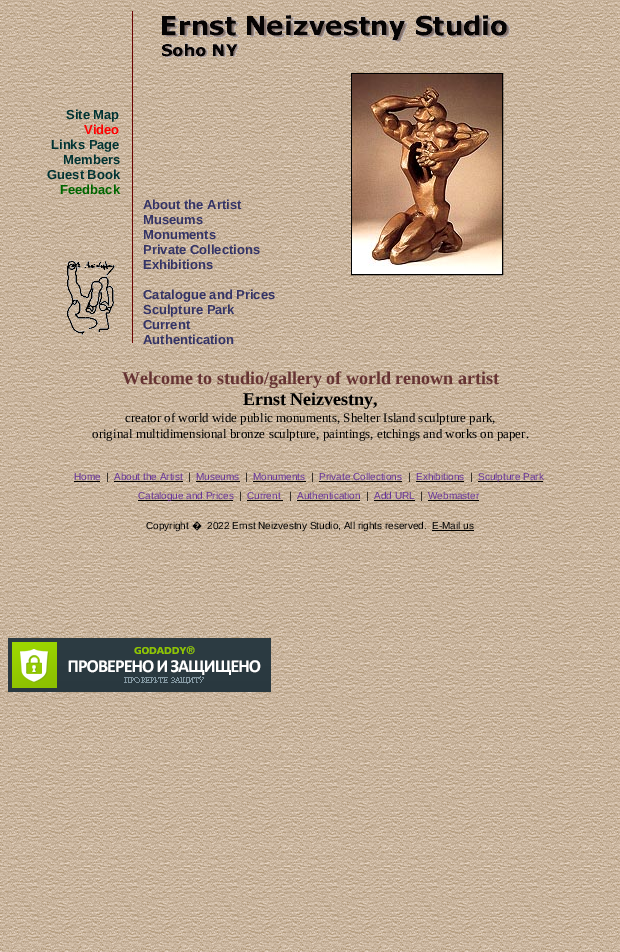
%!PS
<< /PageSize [620 952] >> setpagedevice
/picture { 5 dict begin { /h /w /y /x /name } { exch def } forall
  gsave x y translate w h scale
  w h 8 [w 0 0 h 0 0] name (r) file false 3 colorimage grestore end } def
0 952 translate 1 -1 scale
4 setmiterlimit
1 setgray
0 0 620 952 rectfill
(img1.rgb) 0 0 620 952 picture
0.42 0.004 0.004 setrgbcolor
132 11 1 332 rectfill
(img2.rgb) 162 15 348 43 picture
/LiberationSans-Bold [13 0 0 -13 0 0] selectfont
0 0.2 0.2 setrgbcolor
66 119 moveto (Site Map) show
1 0 0 setrgbcolor
84 134 moveto (Video) show
0 0.2 0.2 setrgbcolor
51 149 moveto (Links Page) show
63 164 moveto (Members) show
47 179 moveto (Guest Book) show
0 0.4 0 setrgbcolor
60 194 moveto (Feedback) show
(img3.rgb) 67 260 48 75 picture
0.2 0.2 0.4 setrgbcolor
143 209 moveto (About the Artist) show
143 224 moveto (Museums) show
143 239 moveto (Monuments) show
143 254 moveto (Private Collections) show
143 269 moveto (Exhibitions) show
143 299 moveto (Catalogue and Prices) show
143 314 moveto (Sculpture Park) show
143 329 moveto (Current) show
143 344 moveto (Authentication) show
0 setgray
351.5 73.5 151 201 rectstroke
(img4.rgb) 352 74 150 200 picture
/LiberationSerif-Bold [18 0 0 -18 0 0] selectfont
0.4 0.2 0.2 setrgbcolor
122 384 moveto (Welcome to studio/gallery of world renown artist) show
0 setgray
243 405 moveto (Ernst Neizvestny,) show
/LiberationSerif-Regular [13 0 0 -13 0 0] selectfont
125 422 moveto (creator of world wide public monuments, Shelter Island sculpture park,) show
92 438 moveto (original multidimensional bronze sculpture, paintings, etchings and works on paper.) show
/LiberationSans-Regular [10 0 0 -10 0 0] selectfont
0.4 0.2 0.6 setrgbcolor
74 480 moveto (Home) show
0 setgray
74 481 26 1 rectfill
106 480 moveto (|) show
0.4 0.2 0.6 setrgbcolor
114 480 moveto (About the Artist) show
0 setgray
114 481 69 1 rectfill
188 480 moveto (|) show
0.4 0.2 0.6 setrgbcolor
196 480 moveto (Museums) show
0 setgray
196 481 44 1 rectfill
245 480 moveto (|) show
0.4 0.2 0.6 setrgbcolor
253 480 moveto (Monuments) show
0 setgray
253 481 53 1 rectfill
311 480 moveto (|) show
0.4 0.2 0.6 setrgbcolor
319 480 moveto (Private Collections) show
0 setgray
319 481 83 1 rectfill
408 480 moveto (|) show
0.4 0.2 0.6 setrgbcolor
416 480 moveto (Exhibitions) show
0 setgray
416 481 48 1 rectfill
470 480 moveto (|) show
478 481 65 1 rectfill
0.4 0.2 0.6 setrgbcolor
478 480 moveto (Sculpture Park) show
0 setgray
138 500 95 1 rectfill
0.4 0.2 0.6 setrgbcolor
138 499 moveto (Catalogue and Prices) show
0 setgray
239 499 moveto (|) show
0.4 0.2 0.6 setrgbcolor
247 499 moveto (Current) show
0 setgray
247 500 36 1 rectfill
289 499 moveto (|) show
0.4 0.2 0.6 setrgbcolor
297 499 moveto (Authentication) show
0 setgray
297 500 63 1 rectfill
366 499 moveto (|) show
0.4 0.2 0.6 setrgbcolor
374 499 moveto (Add URL) show
0 setgray
374 500 41 1 rectfill
420 499 moveto (|) show
0.4 0.2 0.6 setrgbcolor
428 499 moveto (Webmaster) show
0 setgray
428 500 51 1 rectfill
146 529 moveto (Copyright) show
/NotoSans-Regular [10 0 0 -10 0 0] selectfont
192 529 moveto (�) show
/LiberationSans-Regular [10 0 0 -10 0 0] selectfont
207 529 moveto (2022 Ernst Neizvestny Studio, All rights reserved.) show
432 529 moveto (E-Mail us) show
432 530 42 1 rectfill
(img5.rgb) 8 638 263 54 picture
showpage
